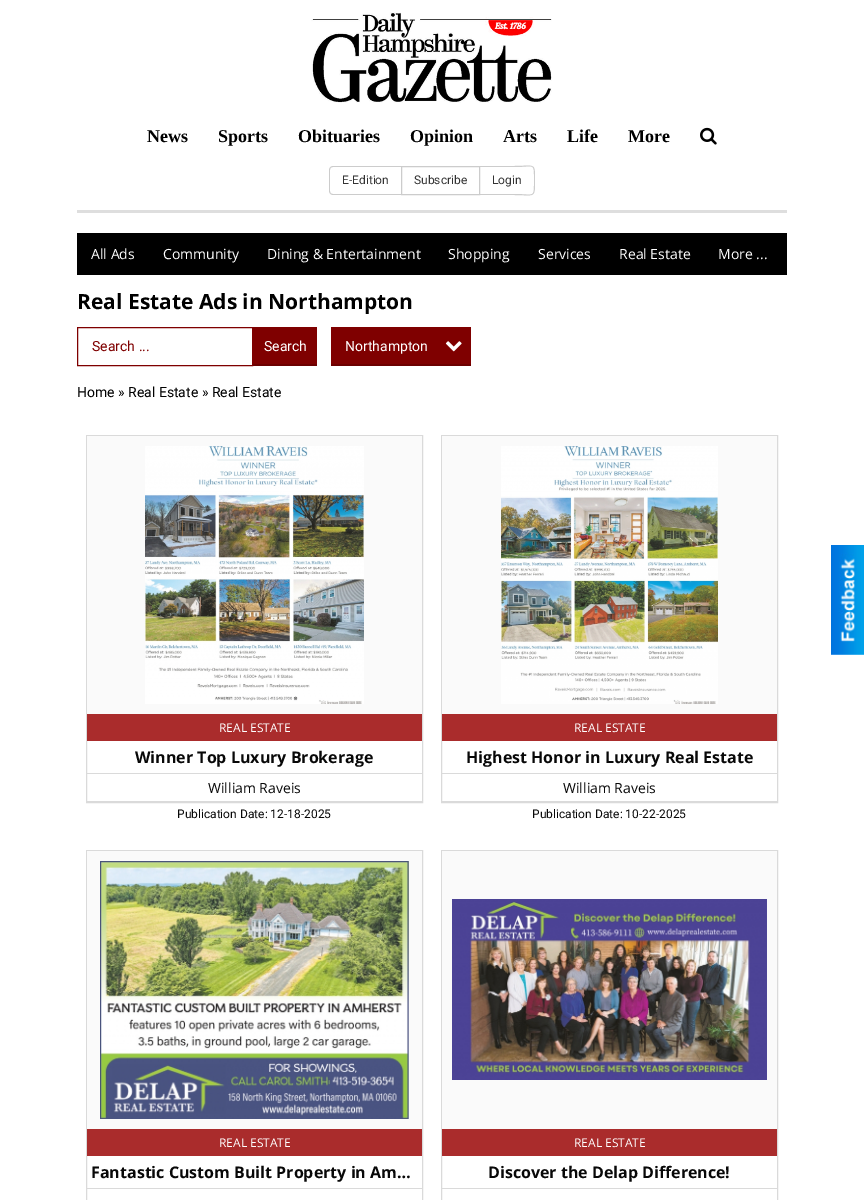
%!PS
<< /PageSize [864 1200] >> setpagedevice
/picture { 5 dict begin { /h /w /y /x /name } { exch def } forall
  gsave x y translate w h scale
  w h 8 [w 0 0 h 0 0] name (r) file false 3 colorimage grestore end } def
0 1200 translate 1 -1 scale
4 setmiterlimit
1 setgray
0 0 864 1200 rectfill
0.871 setgray
77 210 710 3 rectfill
(img1.rgb) 311 12 241 91 picture
/LiberationSerif-Bold [18 0 0 -18 0 0] selectfont
0 setgray
147 142 moveto (News) show
218 142 moveto (Sports) show
298 142 moveto (Obituaries) show
410 142 moveto (Opinion) show
503 142 moveto (Arts) show
567 142 moveto (Life) show
628 142 moveto (More) show
(img2.rgb) 700 127 17 18 picture
0.8 setgray
newpath 333 166 moveto 401 166 lineto 401 195 lineto 333 195 lineto 331 195 329 193 329 191 curveto 329 170 lineto 329 168 331 166 333 166 curveto closepath 333 167 moveto 401 167 lineto 401 194 lineto 333 194 lineto 331 194 330 193 330 191 curveto 330 170 lineto 330 168 331 167 333 167 curveto closepath eofill
/Roboto-Regular [12 0 0 -12 0 0] selectfont
0.2 setgray
342 184 moveto (E-Edition) show
0.8 setgray
401.5 166.5 78 28 rectstroke
0.2 setgray
414 184 moveto (Subscribe) show
0.8 setgray
newpath 480 166 moveto 514 166 lineto 535 166 535 162 535 180 curveto 535 199 535 195 514 195 curveto 480 195 lineto closepath 480 167 moveto 514 167 lineto 535 167 534 162 534 180 curveto 534 199 535 194 514 194 curveto 480 194 lineto closepath eofill
0.2 setgray
492 184 moveto (Login) show
0 setgray
77 233 710 42 rectfill
/OpenSans-Regular [14 0 0 -14 0 0] selectfont
1 setgray
91 259 moveto (All Ads) show
163 259 moveto (Community) show
267 259 moveto (Dining & Entertainment) show
448 259 moveto (Shopping) show
538 259 moveto (Services) show
619 259 moveto (Real Estate) show
718 259 moveto (More ...) show
/OpenSans-Bold [21 0 0 -21 0 0] selectfont
0 setgray
77 309 moveto (Real Estate Ads in Northampton) show
0.498 0 0 setrgbcolor
77.5 327.5 175 38 rectstroke
/Roboto-Regular [14 0 0 -14 0 0] selectfont
92 351 moveto (Search ...) show
253 327 64 37 rectfill
0.424 0 0 setrgbcolor
253 364 64 2 rectfill
1 setgray
264 351 moveto (Search) show
0.498 0 0 setrgbcolor
331 327 140 37 rectfill
0.424 0 0 setrgbcolor
331 364 140 2 rectfill
1 setgray
345 351 moveto (Northampton) show
(img3.rgb) 445 341 17 11 picture
0 setgray
77 397 moveto (Home » Real Estate » Real Estate) show
0.855 setgray
86.5 435.5 336 367 rectstroke
87 801 335 1 rectfill
0.98 setgray
87 436 335 278 rectfill
(img4.rgb) 145 446 219 258 picture
0.667 0.173 0.173 setrgbcolor
87 714 335 27 rectfill
/OpenSans-Regular [12 0 0 -12 0 0] selectfont
1 setgray
219 732 moveto (REAL ESTATE) show
0.855 setgray
87 773 335 1 rectfill
/OpenSans-Bold [16 0 0 -16 0 0] selectfont
0.031 setgray
135 763 moveto (Winner Top Luxury Brokerage) show
/OpenSans-Regular [14 0 0 -14 0 0] selectfont
208 793 moveto (William Raveis) show
/Roboto-Regular [12 0 0 -12 0 0] selectfont
177 818 moveto (Publication Date: 12-18-2025) show
0.855 setgray
441.5 435.5 336 367 rectstroke
442 801 335 1 rectfill
0.98 setgray
442 436 335 278 rectfill
(img5.rgb) 501 446 217 258 picture
0.667 0.173 0.173 setrgbcolor
442 714 335 27 rectfill
/OpenSans-Regular [12 0 0 -12 0 0] selectfont
1 setgray
574 732 moveto (REAL ESTATE) show
0.855 setgray
442 773 335 1 rectfill
/OpenSans-Bold [16 0 0 -16 0 0] selectfont
0.031 setgray
466 763 moveto (Highest Honor in Luxury Real Estate) show
/OpenSans-Regular [14 0 0 -14 0 0] selectfont
563 793 moveto (William Raveis) show
/Roboto-Regular [12 0 0 -12 0 0] selectfont
532 818 moveto (Publication Date: 10-22-2025) show
0.855 setgray
86.5 850.5 336 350 rectstroke
0.98 setgray
87 851 335 278 rectfill
(img6.rgb) 100 861 309 258 picture
0.667 0.173 0.173 setrgbcolor
87 1129 335 27 rectfill
/OpenSans-Regular [12 0 0 -12 0 0] selectfont
1 setgray
219 1147 moveto (REAL ESTATE) show
0.855 setgray
87 1188 335 1 rectfill
/OpenSans-Bold [16 0 0 -16 0 0] selectfont
0.031 setgray
91 1178 moveto (Fantastic Custom Built Property in Am…) show
0.855 setgray
441.5 850.5 336 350 rectstroke
0.98 setgray
442 851 335 278 rectfill
(img7.rgb) 452 899 315 181 picture
0.667 0.173 0.173 setrgbcolor
442 1129 335 27 rectfill
/OpenSans-Regular [12 0 0 -12 0 0] selectfont
1 setgray
574 1147 moveto (REAL ESTATE) show
0.855 setgray
442 1188 335 1 rectfill
/OpenSans-Bold [16 0 0 -16 0 0] selectfont
0.031 setgray
488 1178 moveto (Discover the Delap Difference!) show
(img8.rgb) 831 545 33 110 picture
showpage
